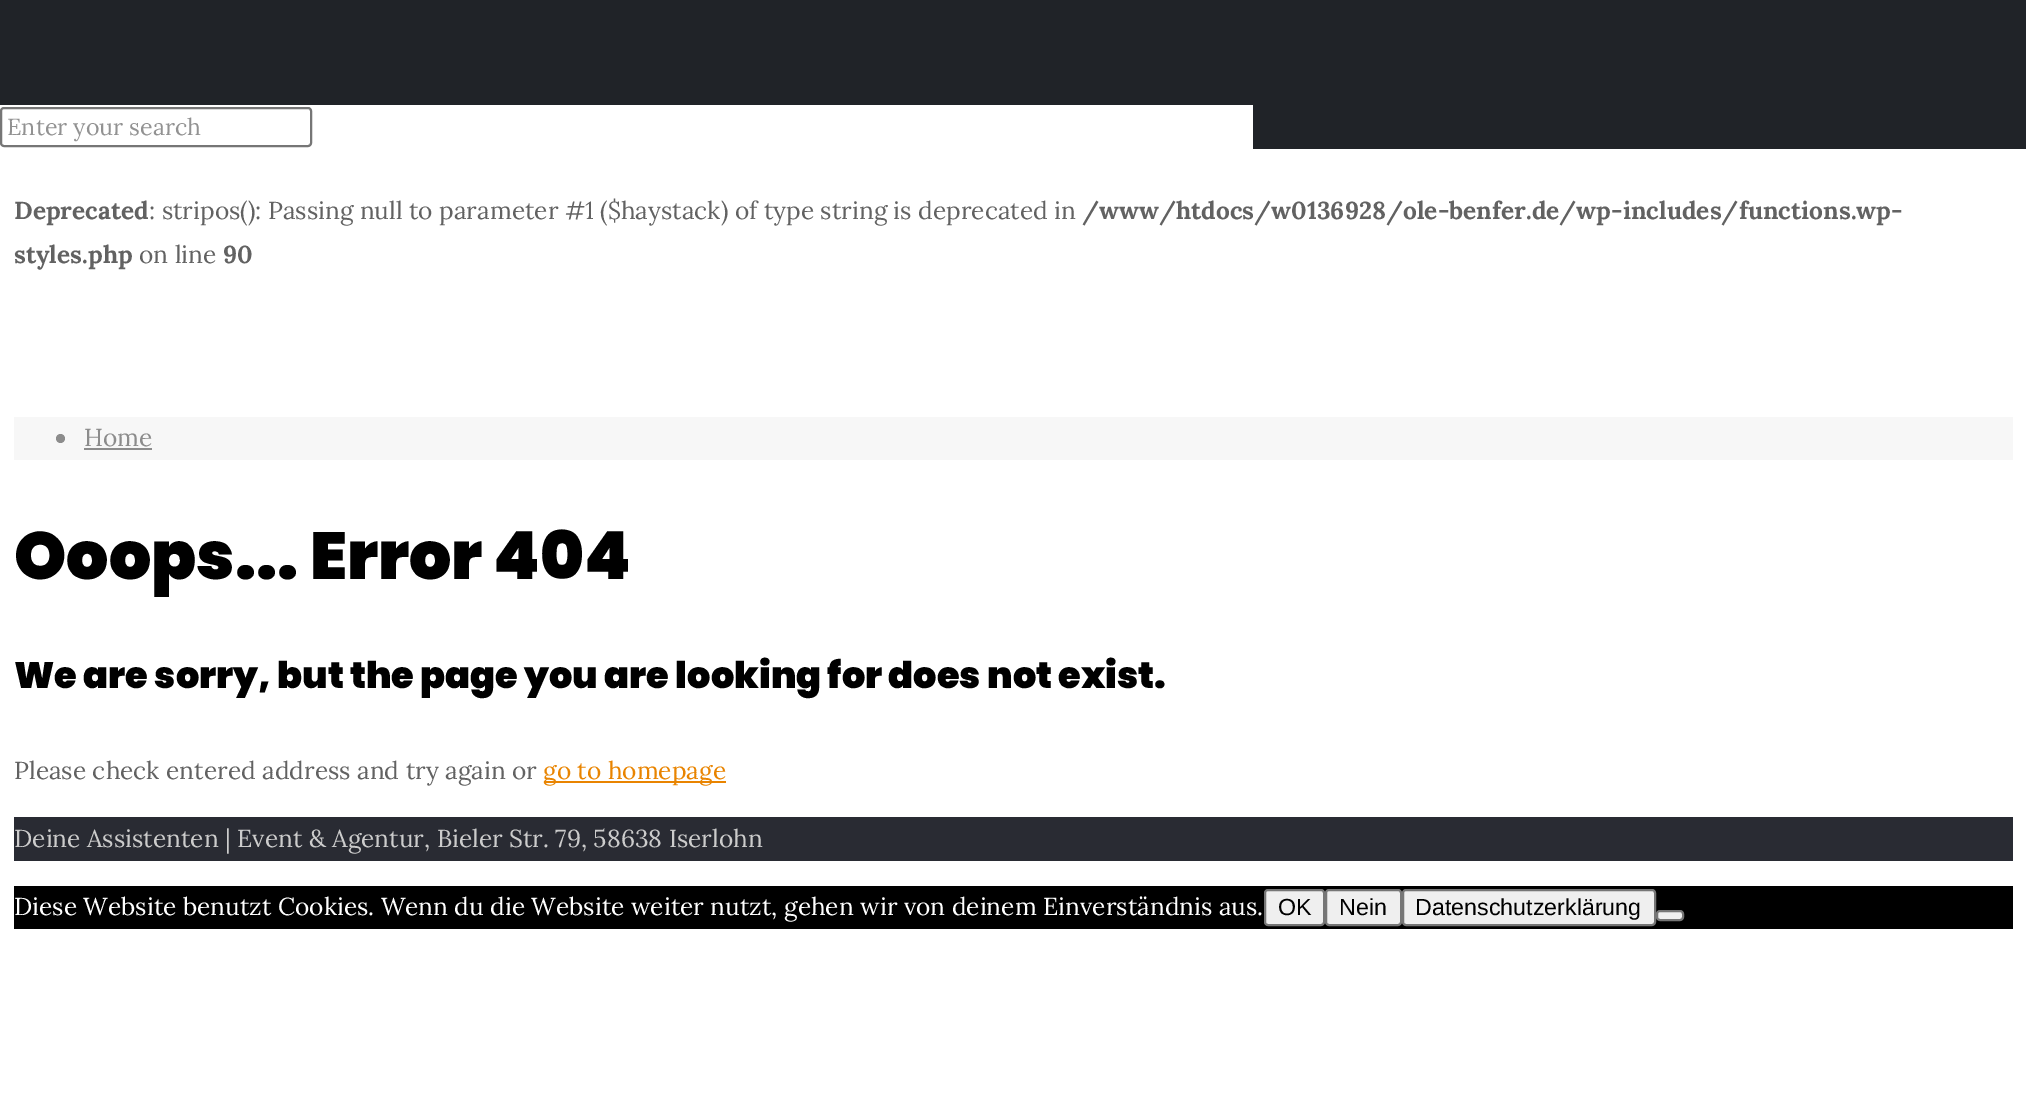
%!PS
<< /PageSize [2026 1096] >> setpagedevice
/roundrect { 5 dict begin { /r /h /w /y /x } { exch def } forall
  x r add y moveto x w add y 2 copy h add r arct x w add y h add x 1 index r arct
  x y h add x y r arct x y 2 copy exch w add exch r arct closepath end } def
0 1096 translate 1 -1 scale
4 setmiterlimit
1 setgray
0 0 2026 1096 rectfill
0.125 0.137 0.157 setrgbcolor
0 0 2026 149 rectfill
1 setgray
0 105 1253 44 rectfill
0.463 setgray
2 setlinewidth
1 108 310 38 3 roundrect stroke
/Lora-Regular [23.25 0 0 -23.25 0 0] selectfont
0.573 setgray
7 135 moveto (Enter your search) show
/Lora-Bold [24.5 0 0 -24.5 0 0] selectfont
0.384 setgray
14 219 moveto (Deprecated) show
/Lora-Regular [24.5 0 0 -24.5 0 0] selectfont
149 219 moveto (: stripos\(\): Passing null to parameter #1 \($haystack\) of type string is deprecated in) show
/Lora-Bold [24.5 0 0 -24.5 0 0] selectfont
1082 219 moveto (/www/htdocs/w0136928/ole-benfer.de/wp-includes/functions.wp-) show
14 263 moveto (styles.php) show
/Lora-Regular [24.5 0 0 -24.5 0 0] selectfont
139 263 moveto (on line) show
/Lora-Bold [24.5 0 0 -24.5 0 0] selectfont
223 263 moveto (90) show
0.969 setgray
14 417 1999 43 rectfill
0.549 setgray
newpath 60.5 438.5 4.5 0 360 arc closepath fill
/Lora-Regular [24.5 0 0 -24.5 0 0] selectfont
84 446 moveto (Home) show
84 448 68 2 rectfill
/Poppins-Black [66.5 0 0 -66.5 0 0] selectfont
0 setgray
14 579 moveto (Ooops... Error 404) show
/Poppins-Black [36.75 0 0 -36.75 0 0] selectfont
14 688 moveto (We are sorry, but the page you are looking for does not exist.) show
/Lora-Regular [24.5 0 0 -24.5 0 0] selectfont
0.384 setgray
14 779 moveto (Please check entered address and try again or) show
0.914 0.518 0 setrgbcolor
544 781 182 2 rectfill
543 779 moveto (go to homepage) show
0.161 0.169 0.2 setrgbcolor
14 817 1999 44 rectfill
0.8 setgray
14 847 moveto (Deine Assistenten | Event & Agentur, Bieler Str. 79, 58638 Iserlohn) show
0 setgray
14 886 1999 43 rectfill
1 setgray
14 915 moveto (Diese Website benutzt Cookies. Wenn du die Website weiter nutzt, gehen wir von deinem Einverständnis aus.) show
0.937 setgray
1265 890 59 35 3 roundrect gsave fill grestore
0.463 setgray
stroke
/LiberationSans-Regular [23.25 0 0 -23.25 0 0] selectfont
0 setgray
1278 915 moveto (OK) show
0.937 setgray
1326 890 75 35 3 roundrect gsave fill grestore
0.463 setgray
stroke
0 setgray
1339 915 moveto (Nein) show
0.937 setgray
1403 890 252 35 3 roundrect gsave fill grestore
0.463 setgray
stroke
0 setgray
1415 915 moveto (Datenschutzerklärung) show
0.937 setgray
1657 911 26 9 3 roundrect gsave fill grestore
0.463 setgray
stroke
showpage
